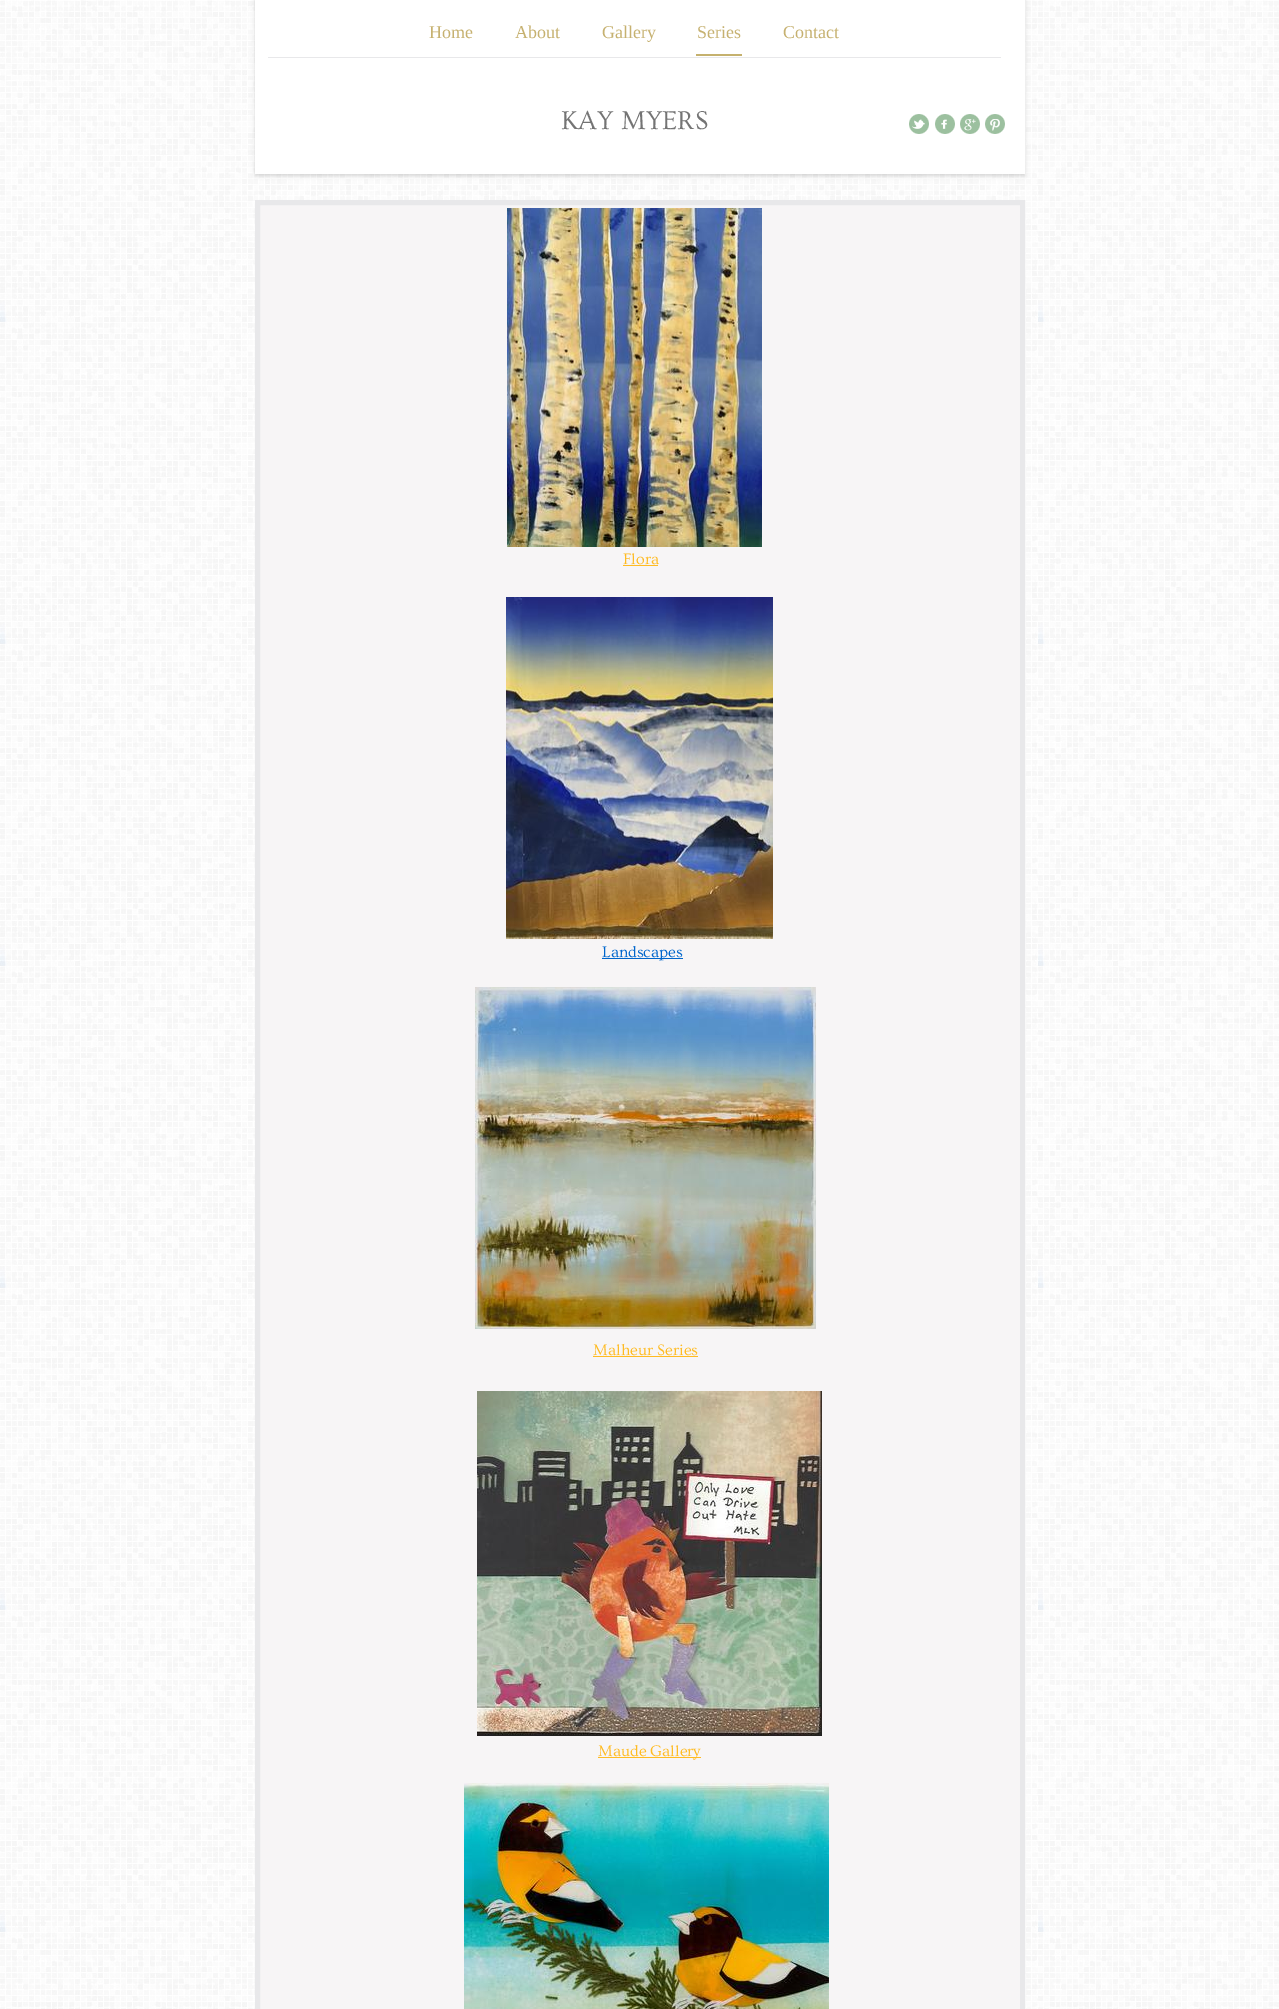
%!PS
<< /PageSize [1279 2009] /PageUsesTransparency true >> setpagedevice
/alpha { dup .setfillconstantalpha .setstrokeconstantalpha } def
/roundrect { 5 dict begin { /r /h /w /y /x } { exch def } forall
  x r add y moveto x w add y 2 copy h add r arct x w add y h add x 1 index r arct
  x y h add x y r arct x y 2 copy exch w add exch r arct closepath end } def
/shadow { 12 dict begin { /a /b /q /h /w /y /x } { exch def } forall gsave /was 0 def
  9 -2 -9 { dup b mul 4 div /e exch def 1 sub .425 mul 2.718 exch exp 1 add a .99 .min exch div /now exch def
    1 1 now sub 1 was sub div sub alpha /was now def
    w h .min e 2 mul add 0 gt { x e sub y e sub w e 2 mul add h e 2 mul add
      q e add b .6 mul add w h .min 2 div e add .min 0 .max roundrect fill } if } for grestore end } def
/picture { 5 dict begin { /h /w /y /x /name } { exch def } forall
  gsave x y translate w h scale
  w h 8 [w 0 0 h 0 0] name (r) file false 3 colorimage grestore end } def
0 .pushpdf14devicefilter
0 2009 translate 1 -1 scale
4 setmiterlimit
1 setgray
0 0 1279 2009 rectfill
(img1.rgb) 0 0 1279 2009 picture
0.969 0.961 0.965 setrgbcolor
newpath 257.5 202.5 moveto 1022.5 202.5 lineto 1022.5 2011.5 lineto 257.5 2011.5 lineto closepath gsave fill grestore
0.91 0.91 0.918 setrgbcolor
5 setlinewidth
stroke
0 setgray
255 -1 770 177 0 2 0.15 shadow
1 setgray
255 0 770 174 rectfill
0.91 0.91 0.918 setrgbcolor
268 57 733 1 rectfill
/LiberationSerif-Regular [18 0 0 -18 0 0] selectfont
0.776 0.694 0.439 setrgbcolor
429 38 moveto (Home) show
515 38 moveto (About) show
602 38 moveto (Gallery) show
0.773 0.694 0.431 setrgbcolor
696 54 46 2 rectfill
0.776 0.694 0.439 setrgbcolor
697 38 moveto (Series) show
783 38 moveto (Contact) show
/Ovo-Regular [27 0 0 -27 0 0] selectfont
0.455 setgray
561 129 moveto (KAY MYERS) show
(img2.rgb) 909 114 20 20 picture
(img3.rgb) 935 114 20 20 picture
(img4.rgb) 960 114 20 20 picture
(img5.rgb) 985 114 20 20 picture
(img6.rgb) 507 208 255 339 picture
/Ovo-Regular [16 0 0 -16 0 0] selectfont
1 0.733 0.133 setrgbcolor
623 564 moveto (Flora) show
623 565 35 1 rectfill
(img7.rgb) 506 597 267 342 picture
0 0.4 0.8 setrgbcolor
602 958 81 1 rectfill
602 957 moveto (Landscapes) show
(img8.rgb) 475 987 341 342 picture
1 0.733 0.133 setrgbcolor
593 1355 moveto (Malheur Series) show
593 1356 105 1 rectfill
(img9.rgb) 477 1391 345 345 picture
598 1757 103 1 rectfill
598 1756 moveto (Maude Gallery) show
(img10.rgb) 464 1783 365 226 picture
.poppdf14devicefilter showpage
